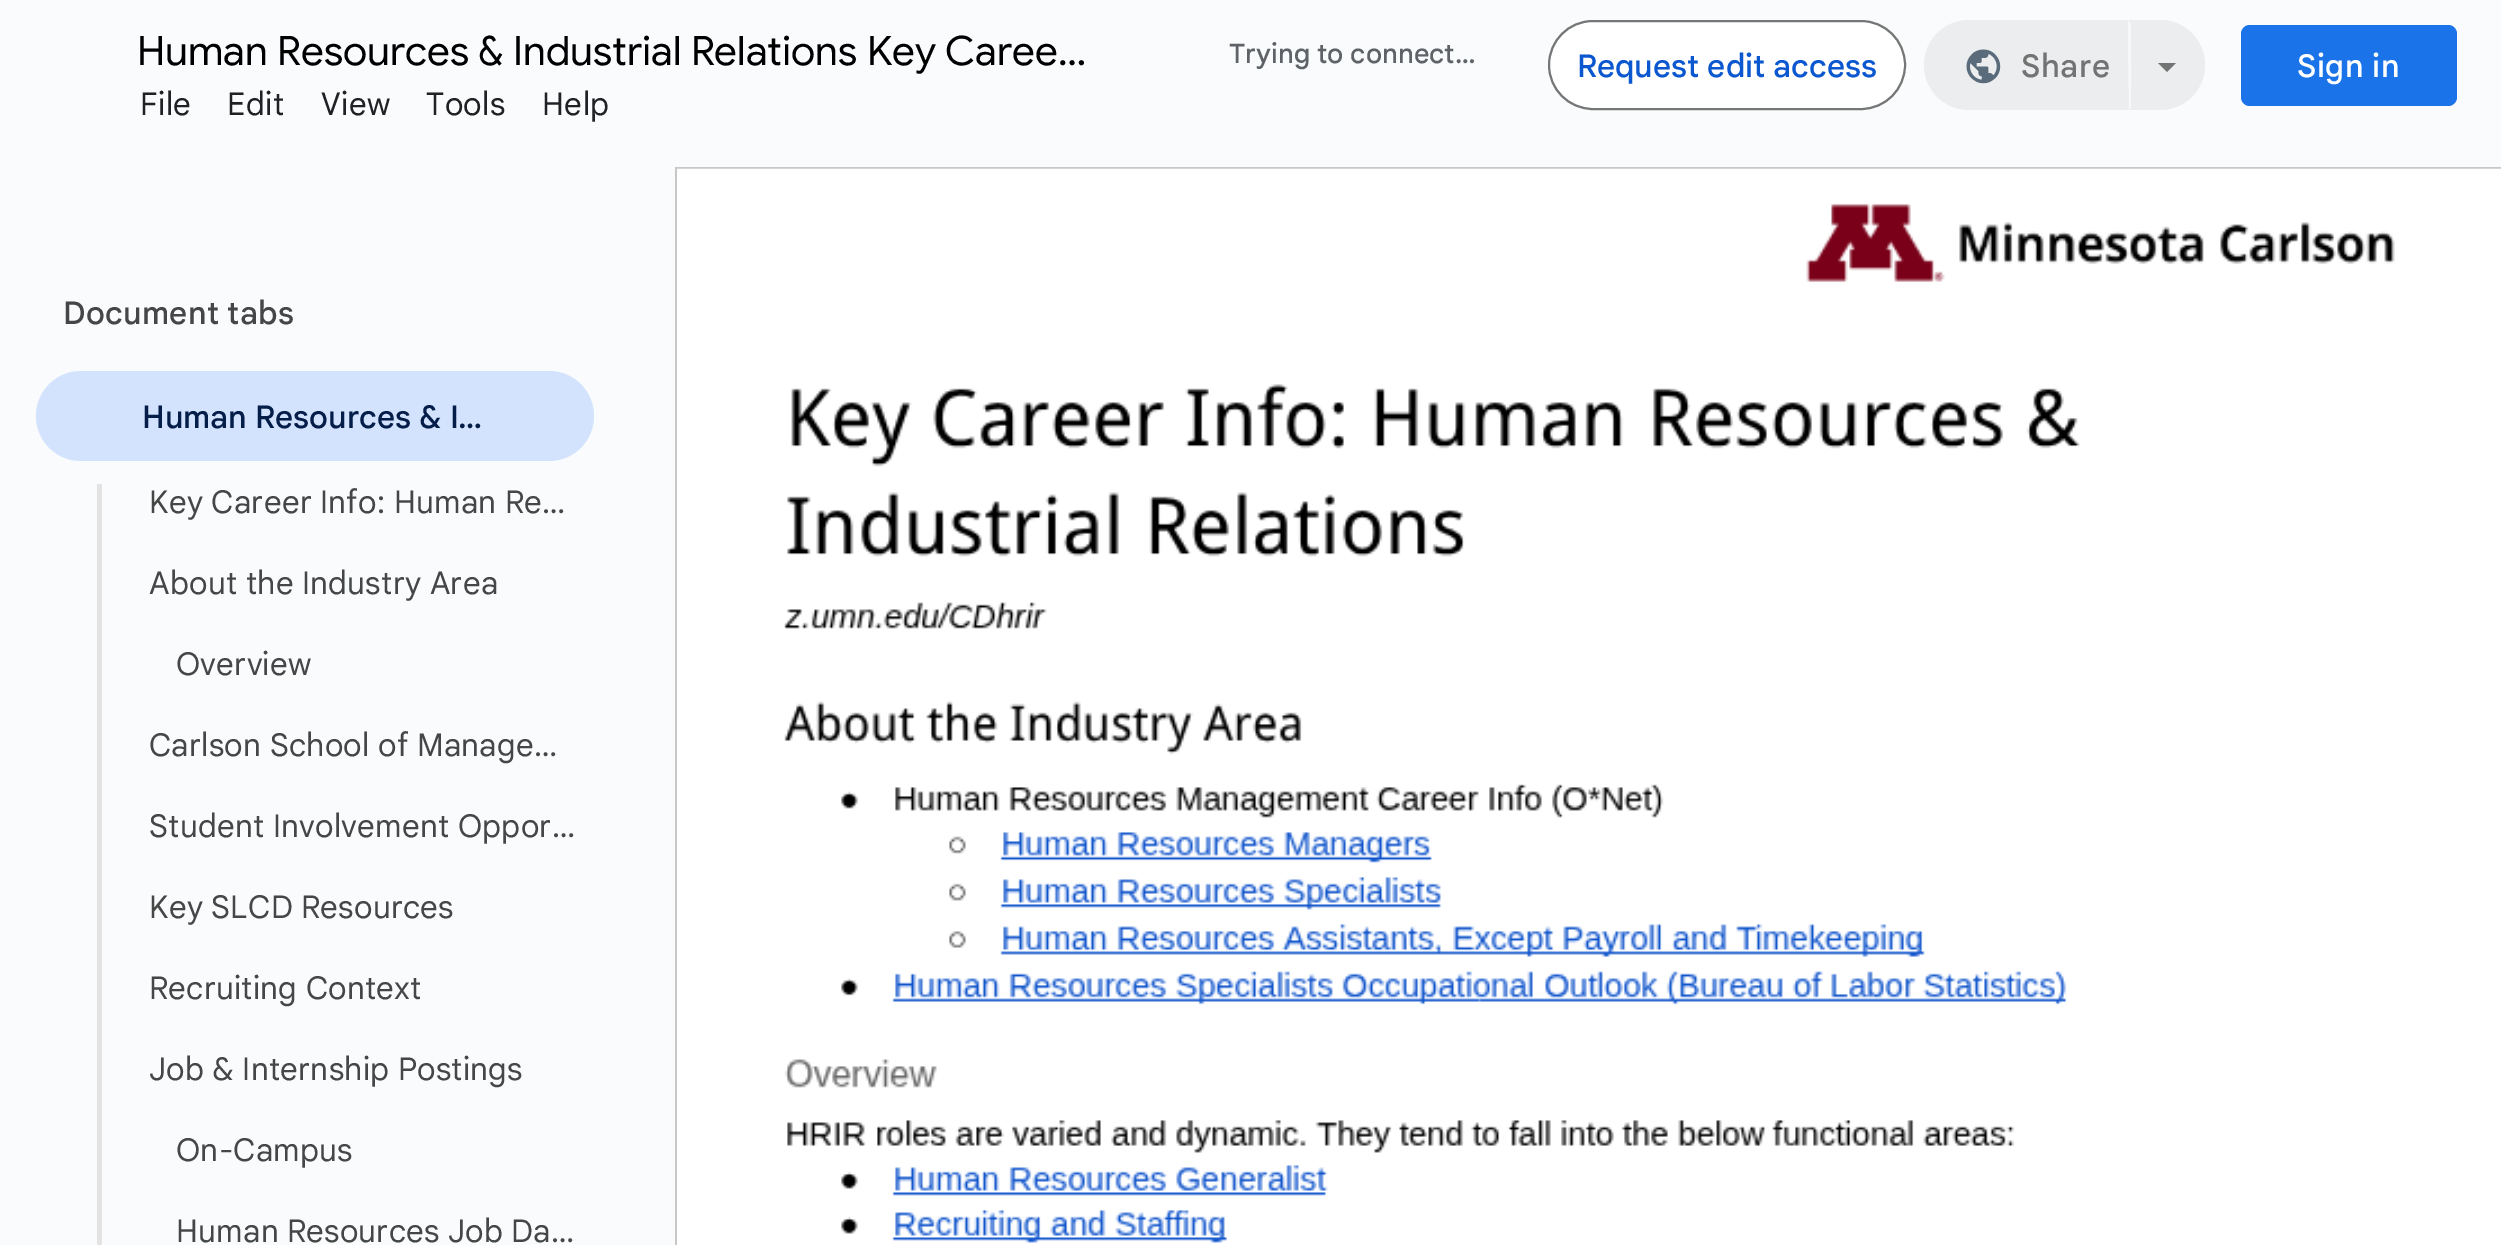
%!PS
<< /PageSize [2501 1245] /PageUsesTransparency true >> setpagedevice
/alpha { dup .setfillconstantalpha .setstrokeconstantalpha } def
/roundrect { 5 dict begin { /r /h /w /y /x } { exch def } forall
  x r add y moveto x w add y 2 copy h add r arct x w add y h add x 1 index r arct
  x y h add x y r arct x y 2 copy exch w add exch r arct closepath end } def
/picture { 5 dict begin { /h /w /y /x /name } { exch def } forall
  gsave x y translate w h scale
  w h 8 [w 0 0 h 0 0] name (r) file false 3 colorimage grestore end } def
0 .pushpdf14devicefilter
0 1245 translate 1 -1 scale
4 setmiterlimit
0.976 0.984 0.992 setrgbcolor
0 0 2501 1245 rectfill
/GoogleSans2-Regular [40.5 0 0 -40.5 0 0] selectfont
0 setgray
137 65 moveto (Human Resources & Industrial Relations Key Caree…) show
/GoogleSans-Medium [27 0 0 -27 0 0] selectfont
0.373 0.388 0.408 setrgbcolor
1229 63 moveto (Trying to connect…) show
1 setgray
1549 21 356 88 44 roundrect gsave fill grestore
0.455 0.467 0.459 setrgbcolor
2 setlinewidth
stroke
/GoogleSans-Medium [31.5 0 0 -31.5 0 0] selectfont
0.043 0.341 0.816 setrgbcolor
1577 77 moveto (Request edit access) show
0.925 0.929 0.933 setrgbcolor
newpath 1969 20 moveto 2131 20 lineto 2131 110 lineto 1969 110 lineto 1944 110 1924 90 1924 65 curveto 1924 40 1944 20 1969 20 curveto closepath fill
(img1.rgb) 1966 49 35 35 picture
0.447 0.451 0.451 setrgbcolor
2021 77 moveto 0.5 0 (Share) ashow
0.62 alpha
0.894 setgray
newpath 2129 20 moveto 2160 20 lineto 2185 20 2205 40 2205 65 curveto 2205 90 2185 110 2160 110 curveto 2129 110 lineto closepath fill
1 alpha
0.973 0.973 0.976 setrgbcolor
newpath 2129 110 moveto 2128 20 lineto 2131 23 lineto 2131 108 lineto closepath fill
0.447 0.451 0.451 setrgbcolor
newpath 2158 63 moveto 2176 63 lineto 2167 72 lineto closepath fill
0.102 0.451 0.91 setrgbcolor
2241 25 216 81 9 roundrect fill
1 setgray
2297 77 moveto 0.5 0 (Sign in) ashow
/GoogleSans-Regular [31.5 0 0 -31.5 0 0] selectfont
0.125 0.129 0.141 setrgbcolor
140 115 moveto 0.5 0 (File) ashow
227 115 moveto 0.5 0 (Edit) ashow
321 115 moveto 0.5 0 (View) ashow
426 115 moveto 0.5 0 (Tools) ashow
542 115 moveto 0.5 0 (Help) ashow
/GoogleSans-Medium [31.5 0 0 -31.5 0 0] selectfont
0.267 0.278 0.275 setrgbcolor
63 324 moveto 0.25 0 (Document tabs) ashow
0.827 0.89 0.992 setrgbcolor
36 371 558 90 45 roundrect fill
0.016 0.118 0.286 setrgbcolor
142 428 moveto (Human Resources & I…) show
0.89 setgray
97 484 5 761 rectfill
/GoogleSans-Regular [31.5 0 0 -31.5 0 0] selectfont
0.267 0.278 0.275 setrgbcolor
149 513 moveto 0.25 0 (Key Career Info: Human Re…) ashow
149 594 moveto 0.25 0 (About the Industry Area) ashow
176 675 moveto 0.25 0 (Overview) ashow
149 756 moveto 0.25 0 (Carlson School of Manage…) ashow
149 837 moveto 0.25 0 (Student Involvement Oppor…) ashow
149 918 moveto 0.25 0 (Key SLCD Resources) ashow
149 999 moveto 0.25 0 (Recruiting Context) ashow
149 1080 moveto 0.25 0 (Job & Internship Postings) ashow
176 1161 moveto 0.25 0 (On-Campus) ashow
176 1242 moveto 0.25 0 (Human Resources Job Da…) ashow
0.78 setgray
676 168 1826 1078 rectstroke
(img2.rgb) 677 168 1824 1077 picture
.poppdf14devicefilter showpage
